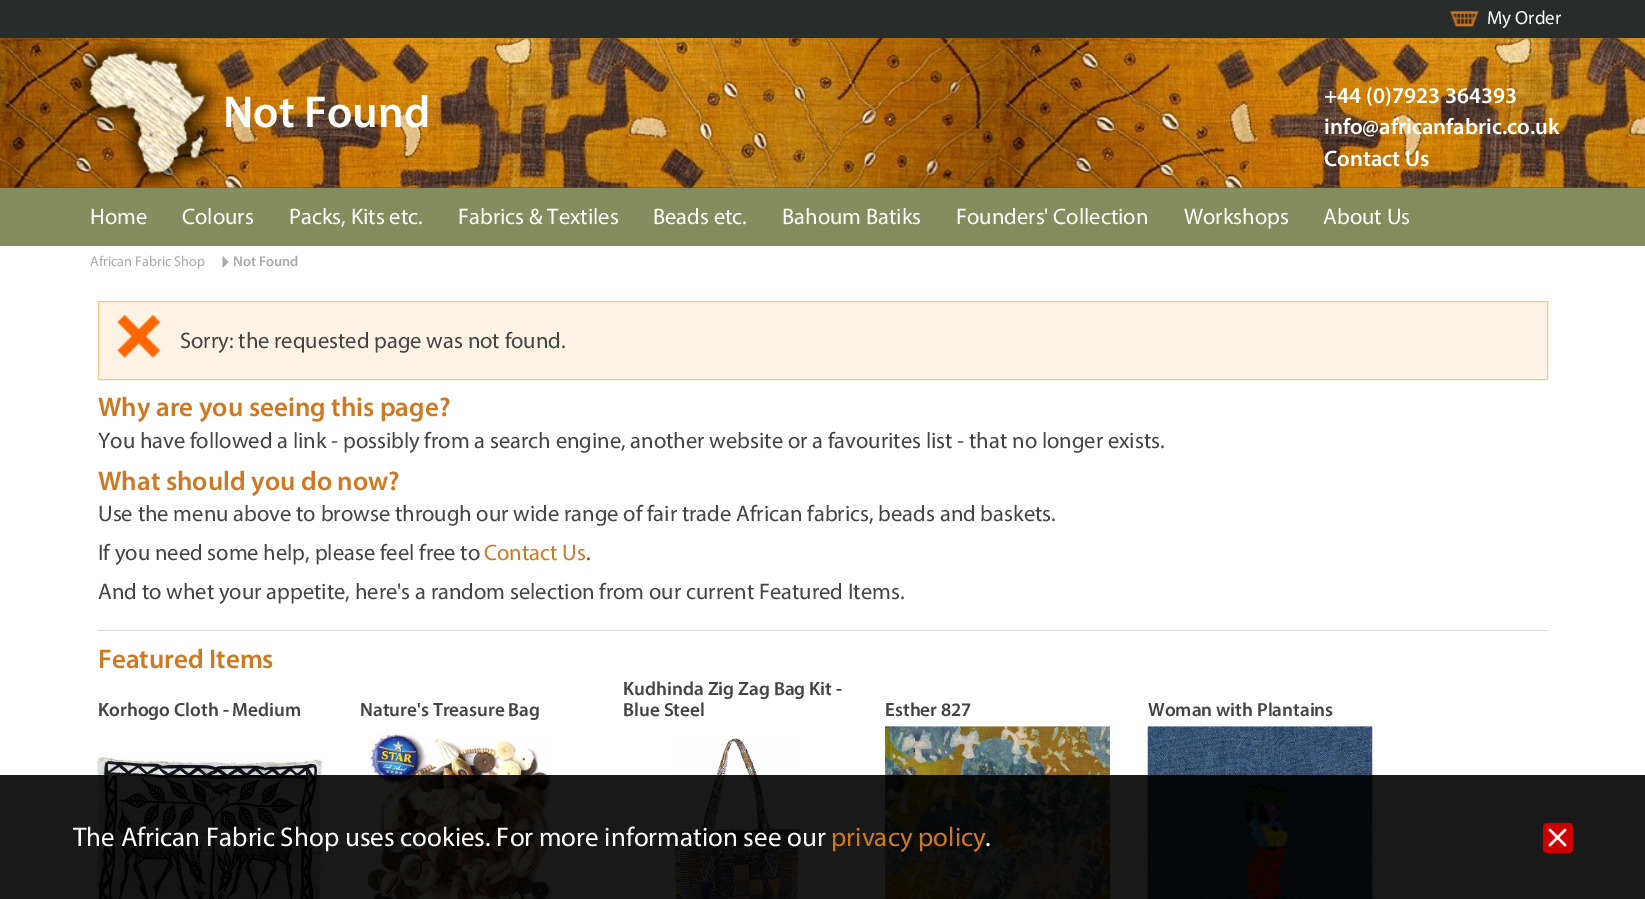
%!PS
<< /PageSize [1645 899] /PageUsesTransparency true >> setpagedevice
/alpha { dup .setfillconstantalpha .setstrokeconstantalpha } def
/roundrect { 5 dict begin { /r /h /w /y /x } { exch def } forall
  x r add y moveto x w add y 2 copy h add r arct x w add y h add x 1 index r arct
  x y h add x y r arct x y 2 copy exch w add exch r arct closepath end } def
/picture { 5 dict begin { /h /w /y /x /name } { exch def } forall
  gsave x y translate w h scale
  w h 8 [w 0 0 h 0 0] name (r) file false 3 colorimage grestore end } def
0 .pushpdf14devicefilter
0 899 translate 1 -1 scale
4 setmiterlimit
1 setgray
0 0 1645 899 rectfill
0.157 0.176 0.169 setrgbcolor
0 0 1645 38 rectfill
(img1.rgb) 1450 11 29 16 picture
/Myriad-Regular [19 0 0 -19 0 0] selectfont
1 setgray
1487 24 moveto (My Order) show
0.333 setgray
0 187 1645 1 rectfill
(img2.rgb) 0 38 1645 150 picture
(img3.rgb) 72 38 150 149 picture
/Myriad-SemiBold [45 0 0 -45 0 0] selectfont
1 setgray
223 127 moveto (Not Found) show
/Myriad-SemiBold [22.5 0 0 -22.5 0 0] selectfont
1324 103 moveto (+44 \(0\)7923 364393) show
1324 134 moveto (info@africanfabric.co.uk) show
1324 166 moveto (Contact Us) show
0.522 0.549 0.369 setrgbcolor
0 188 1645 58 rectfill
/Myriad-Regular [22.5 0 0 -22.5 0 0] selectfont
1 setgray
90 224 moveto (Home) show
182 224 moveto (Colours) show
289 224 moveto (Packs, Kits etc.) show
458 224 moveto (Fabrics & Textiles) show
653 224 moveto (Beads etc.) show
782 224 moveto (Bahoum Batiks) show
956 224 moveto (Founders' Collection) show
1184 224 moveto (Workshops) show
1323 224 moveto (About Us) show
/Myriad-Regular [14.25 0 0 -14.25 0 0] selectfont
0.667 setgray
90 266 moveto (African Fabric Shop) show
(img4.rgb) 222 256 7 12 picture
/Myriad-SemiBold [14.25 0 0 -14.25 0 0] selectfont
233 266 moveto (Not Found) show
0.988 0.953 0.894 setrgbcolor
99 302 1448 77 rectfill
(img5.rgb) 117 315 44 43 picture
0.941 0.792 0.518 setrgbcolor
98.5 301.5 1449 78 rectstroke
/Myriad-Regular [22.5 0 0 -22.5 0 0] selectfont
0.267 setgray
180 348 moveto (Sorry: the requested page was not found.) show
/Myriad-SemiBold [27 0 0 -27 0 0] selectfont
0.808 0.475 0.133 setrgbcolor
98 416 moveto (Why are you seeing this page?) show
/Myriad-Regular [22.5 0 0 -22.5 0 0] selectfont
0.267 setgray
98 448 moveto (You have followed a link - possibly from a search engine, another website or a favourites list - that no longer exists.) show
/Myriad-SemiBold [27 0 0 -27 0 0] selectfont
0.808 0.475 0.133 setrgbcolor
98 490 moveto (What should you do now?) show
/Myriad-Regular [22.5 0 0 -22.5 0 0] selectfont
0.267 setgray
98 521 moveto (Use the menu above to browse through our wide range of fair trade African fabrics, beads and baskets.) show
98 560 moveto (If you need some help, please feel free to) show
0.808 0.475 0.133 setrgbcolor
484 560 moveto (Contact Us) show
0.267 setgray
586 560 moveto (.) show
98 599 moveto (And to whet your appetite, here's a random selection from our current Featured Items.) show
0.867 setgray
98 630 1450 1 rectfill
/Myriad-SemiBold [27 0 0 -27 0 0] selectfont
0.808 0.475 0.133 setrgbcolor
98 668 moveto (Featured Items) show
/Myriad-SemiBold [19.1 0 0 -19.1 0 0] selectfont
0.267 setgray
98 716 moveto (Korhogo Cloth - Medium) show
(img6.rgb) 97 756 226 143 picture
360 716 moveto (Nature's Treasure Bag) show
(img7.rgb) 367 733 185 166 picture
623 695 moveto (Kudhinda Zig Zag Bag Kit -) show
623 716 moveto (Blue Steel) show
(img8.rgb) 674 737 128 162 picture
885 716 moveto (Esther 827) show
(img9.rgb) 885 726 225 173 picture
1148 716 moveto (Woman with Plantains) show
(img10.rgb) 1147 726 226 173 picture
0.9 alpha
0 setgray
0 775 1645 124 rectfill
/Myriad-Regular [27 0 0 -27 0 0] selectfont
1 alpha
1 setgray
73 846 moveto (The African Fabric Shop uses cookies. For more information see our) show
0.808 0.475 0.133 setrgbcolor
831 846 moveto (privacy policy) show
1 setgray
985 846 moveto (.) show
0.8 0 0 setrgbcolor
1543 823 30 30 4 roundrect fill
(img11.rgb) 1548 828 19 19 picture
.poppdf14devicefilter showpage
